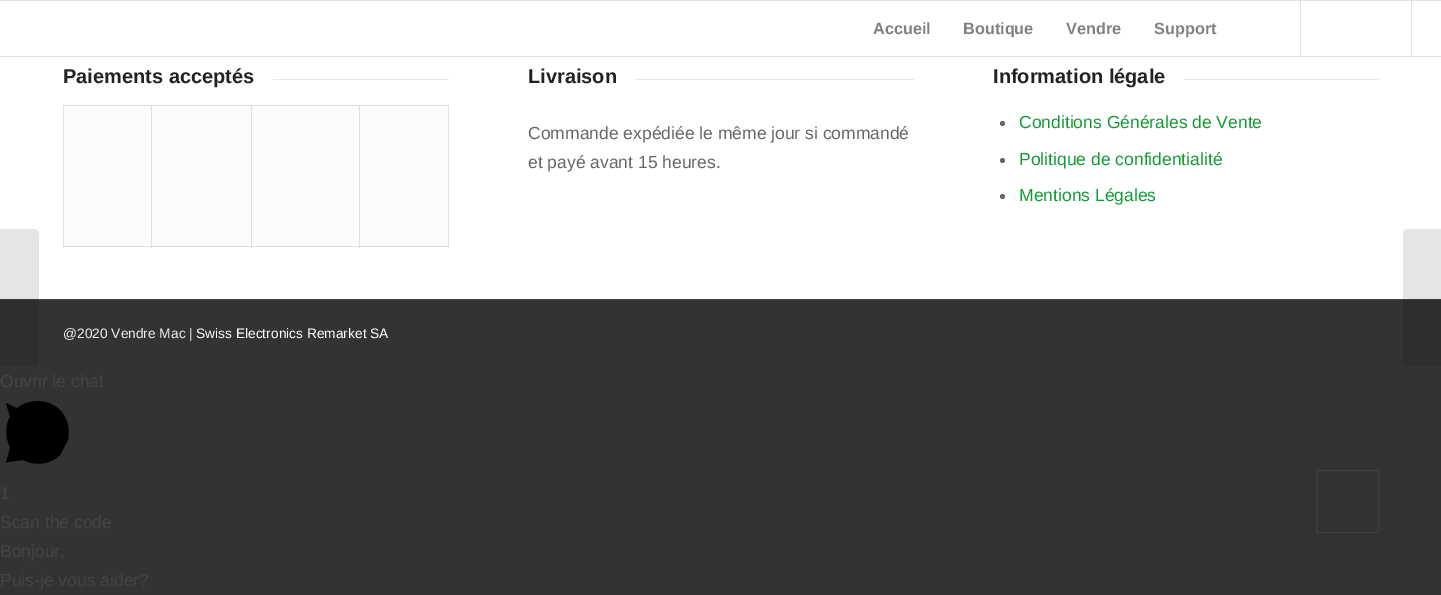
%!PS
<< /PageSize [1441 595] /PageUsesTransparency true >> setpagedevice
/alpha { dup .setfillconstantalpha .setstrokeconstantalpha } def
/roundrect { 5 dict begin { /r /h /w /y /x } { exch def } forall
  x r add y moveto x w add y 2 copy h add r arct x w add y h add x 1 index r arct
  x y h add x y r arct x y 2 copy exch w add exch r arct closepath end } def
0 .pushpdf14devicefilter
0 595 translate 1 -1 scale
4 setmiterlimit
0.2 setgray
0 0 1441 595 rectfill
0.882 setgray
0 0 1441 1 rectfill
1 setgray
0 1 1441 298 rectfill
0.882 setgray
0 56 1441 1 rectfill
/LiberationSans-Bold [16.25 0 0 -16.25 0 0] selectfont
0.502 setgray
873 34 moveto (Accueil) show
963 34 moveto (Boutique) show
1066 34 moveto (Vendre) show
1154 34 moveto (Support) show
0.882 setgray
1411 1 1 55 rectfill
1300 1 1 55 rectfill
0.267 setgray
0 299 1441 1 rectfill
0.1 alpha
0 setgray
newpath 0 229 moveto 34 229 lineto 37 229 39 231 39 234 curveto 39 361 lineto 39 364 37 366 34 366 curveto 0 366 lineto closepath fill
/LiberationSans-Bold [20 0 0 -20 0 0] selectfont
1 alpha
0.133 setgray
63 83 moveto (Paiements acceptés) show
0.91 setgray
273 79 176 1 rectfill
0.988 setgray
64 106 384 142 rectfill
0.882 setgray
63 105 386 1 rectfill
448 105 1 143 rectfill
359 246 90 1 rectfill
359 105 1 143 rectfill
251 246 109 1 rectfill
251 105 1 143 rectfill
151 246 102 1 rectfill
151 105 1 143 rectfill
63 246 90 1 rectfill
63 105 1 143 rectfill
0.133 setgray
528 83 moveto (Livraison) show
0.91 setgray
635 79 279 1 rectfill
/LiberationSans-Regular [17.5 0 0 -17.5 0 0] selectfont
0.4 setgray
528 139 moveto (Commande expédiée le même jour si commandé) show
528 168 moveto (et payé avant 15 heures.) show
/LiberationSans-Bold [20 0 0 -20 0 0] selectfont
0.133 setgray
993 83 moveto (Information légale) show
0.91 setgray
1184 79 195 1 rectfill
0.4 setgray
newpath 1002.5 123.5 2.5 0 360 arc closepath fill
/LiberationSans-Regular [17.5 0 0 -17.5 0 0] selectfont
0.075 0.6 0.208 setrgbcolor
1019 128 moveto (Conditions Générales de Vente) show
0.4 setgray
newpath 1002.5 160.5 2.5 0 360 arc closepath fill
0.075 0.6 0.208 setrgbcolor
1019 165 moveto (Politique de confidentialité) show
0.4 setgray
newpath 1002.5 196.5 2.5 0 360 arc closepath fill
0.075 0.6 0.208 setrgbcolor
1019 201 moveto (Mentions Légales) show
/LiberationSans-Regular [13.75 0 0 -13.75 0 0] selectfont
0.933 setgray
63 338 moveto (@2020 Vendre Mac |) show
1 setgray
196 338 moveto (Swiss Electronics Remarket SA) show
0.1 alpha
0 setgray
newpath 1408 229 moveto 1441 229 lineto 1441 366 lineto 1408 366 lineto 1405 366 1403 364 1403 361 curveto 1403 234 lineto 1403 231 1405 229 1408 229 curveto closepath fill
/LiberationSans-Regular [17.5 0 0 -17.5 0 0] selectfont
1 alpha
0.267 setgray
0 387 moveto (Ouvrir le chat) show
0 setgray
newpath 32 433 moveto 15 433 lineto 6 403 lineto 68 433 lineto 17 457 lineto 6 462 5 466 7 459 curveto 12 443 lineto fill
newpath 60 455 moveto 50 465 35 466 23 460 curveto 8 462 lineto 10 447 lineto 4 435 5 420 15 410 curveto 28 398 47 398 60 410 curveto 68 418 70 430 68 440 curveto fill
0.267 setgray
0 499 moveto (1) show
0 528 moveto (Scan the code) show
0 557 moveto (Bonjour,) show
0 586 moveto (Puis-je vous aider?) show
0.247 setgray
1316.5 470.5 62 62 2 roundrect stroke
.poppdf14devicefilter showpage
